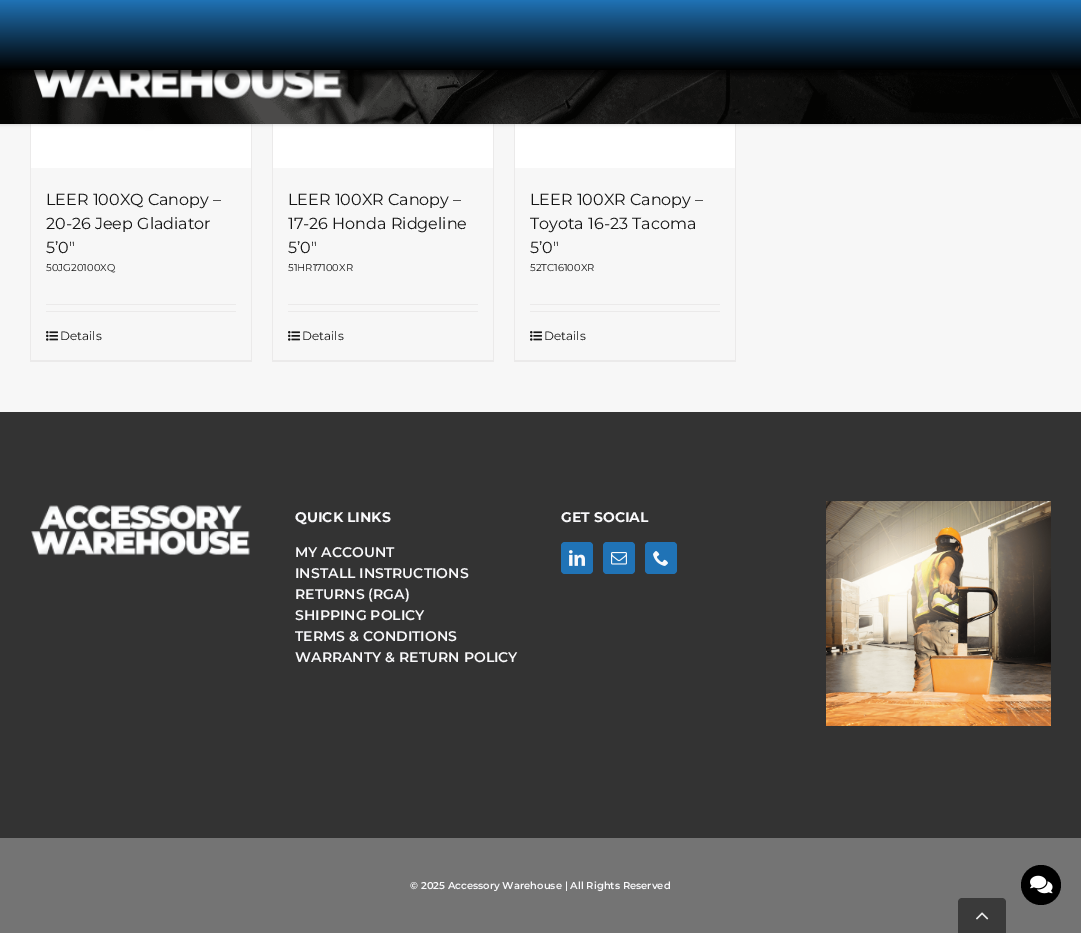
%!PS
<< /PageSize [1081 933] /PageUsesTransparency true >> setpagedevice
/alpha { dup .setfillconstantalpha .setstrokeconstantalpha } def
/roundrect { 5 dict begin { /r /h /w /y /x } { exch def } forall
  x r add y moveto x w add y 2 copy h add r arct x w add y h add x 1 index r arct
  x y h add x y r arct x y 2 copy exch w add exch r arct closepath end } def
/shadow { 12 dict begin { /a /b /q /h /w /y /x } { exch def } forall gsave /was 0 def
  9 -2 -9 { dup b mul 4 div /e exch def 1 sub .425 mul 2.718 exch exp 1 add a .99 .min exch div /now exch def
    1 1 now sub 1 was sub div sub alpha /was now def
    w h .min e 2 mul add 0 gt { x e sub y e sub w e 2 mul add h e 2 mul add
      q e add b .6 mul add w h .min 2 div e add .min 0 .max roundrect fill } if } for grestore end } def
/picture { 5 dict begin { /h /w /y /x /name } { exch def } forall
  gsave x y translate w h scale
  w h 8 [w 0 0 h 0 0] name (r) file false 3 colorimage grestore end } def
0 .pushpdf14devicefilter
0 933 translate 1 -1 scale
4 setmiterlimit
0.969 setgray
0 0 1081 933 rectfill
0.922 0.918 0.918 setrgbcolor
251 124 1 238 rectfill
30 360 222 2 rectfill
30 124 1 238 rectfill
(img3.rgb) 31 124 220 44 picture
493 124 1 238 rectfill
272 360 222 2 rectfill
272 124 1 238 rectfill
(img5.rgb) 273 124 220 44 picture
735 124 1 238 rectfill
514 360 222 2 rectfill
514 124 1 238 rectfill
(img5.rgb) 515 124 220 44 picture
0 setgray
0 1 1081 124 0 1.5 0.12 shadow
(img1.rgb) 0 70 1081 54 picture
(img2.rgb) 33 70 309 29 picture
0 5 1081 70 0 2.5 0.75 shadow
gsave newpath 0 0 moveto 1081 0 lineto 1081 70 lineto 0 70 lineto closepath clip newpath
<< /ShadingType 2 /ColorSpace /DeviceRGB /Coords [541 0 541 70] /Extend [true true] /Function << /FunctionType 2 /Domain [0 1] /C0 [0.125 0.451 0.714] /C1 [0 0 0] /N 1 >> >> shfill grestore
/Montserrat-Regular [16 0 0 -16 0 0] selectfont
0.086 setgray
46 205 moveto (LEER 100XQ Canopy –) show
46 229 moveto (20-26 Jeep Gladiator) show
46 253 moveto (5’0″) show
/Montserrat-Regular [10 0 0 -10 0 0] selectfont
46 271 moveto (50JG20100XQ) show
0.922 0.918 0.918 setrgbcolor
46 304 190 1 rectfill
46 311 190 1 rectfill
(img4.rgb) 46 331 12 10 picture
/Montserrat-Regular [12 0 0 -12 0 0] selectfont
0.086 setgray
60 340 moveto (Details) show
/Montserrat-Regular [16 0 0 -16 0 0] selectfont
288 205 moveto (LEER 100XR Canopy –) show
288 229 moveto (17-26 Honda Ridgeline) show
288 253 moveto (5’0″) show
/Montserrat-Regular [10 0 0 -10 0 0] selectfont
288 271 moveto (51HR17100XR) show
0.922 0.918 0.918 setrgbcolor
288 304 190 1 rectfill
288 311 190 1 rectfill
(img4.rgb) 288 331 12 10 picture
/Montserrat-Regular [12 0 0 -12 0 0] selectfont
0.086 setgray
302 340 moveto (Details) show
/Montserrat-Regular [16 0 0 -16 0 0] selectfont
530 205 moveto (LEER 100XR Canopy –) show
530 229 moveto (Toyota 16-23 Tacoma) show
530 253 moveto (5’0″) show
/Montserrat-Regular [10 0 0 -10 0 0] selectfont
530 271 moveto (52TC16100XR) show
0.922 0.918 0.918 setrgbcolor
530 304 190 1 rectfill
530 311 190 1 rectfill
(img4.rgb) 530 331 12 10 picture
/Montserrat-Regular [12 0 0 -12 0 0] selectfont
0.086 setgray
544 340 moveto (Details) show
0.2 setgray
0 412 1081 426 rectfill
(img6.rgb) 31 505 219 51 picture
/Montserrat-Bold [14 0 0 -14 0 0] selectfont
0.976 0.976 0.984 setrgbcolor
295 522 moveto (QUICK LINKS) show
/Montserrat-SemiBold [14 0 0 -14 0 0] selectfont
295 557 moveto (MY ACCOUNT) show
295 578 moveto (INSTALL INSTRUCTIONS) show
295 599 moveto (RETURNS \(RGA\)) show
295 620 moveto (SHIPPING POLICY) show
295 641 moveto (TERMS & CONDITIONS) show
295 662 moveto (WARRANTY & RETURN POLICY) show
/Montserrat-Bold [14 0 0 -14 0 0] selectfont
561 522 moveto (GET SOCIAL) show
0.125 0.451 0.714 setrgbcolor
561 542 32 32 4 roundrect fill
(img7.rgb) 569 550 16 16 picture
603 542 32 32 4 roundrect fill
(img8.rgb) 611 552 16 13 picture
645 542 32 32 4 roundrect fill
(img9.rgb) 653 551 15 15 picture
(img10.rgb) 826 501 225 225 picture
0.455 setgray
0 838 1081 95 rectfill
/Montserrat-SemiBold [10 0 0 -10 0 0] selectfont
0.976 0.976 0.984 setrgbcolor
410 889 moveto (© 2025 Accessory Warehouse | All Rights Reserved) show
0 setgray
newpath 1041 885 20 0 360 arc closepath fill
(img11.rgb) 1030 875 23 19 picture
0.227 setgray
newpath 962 898 moveto 1002 898 lineto 1004 898 1006 900 1006 902 curveto 1006 933 lineto 958 933 lineto 958 902 lineto 958 900 960 898 962 898 curveto closepath fill
(img12.rgb) 976 912 13 8 picture
.poppdf14devicefilter showpage
